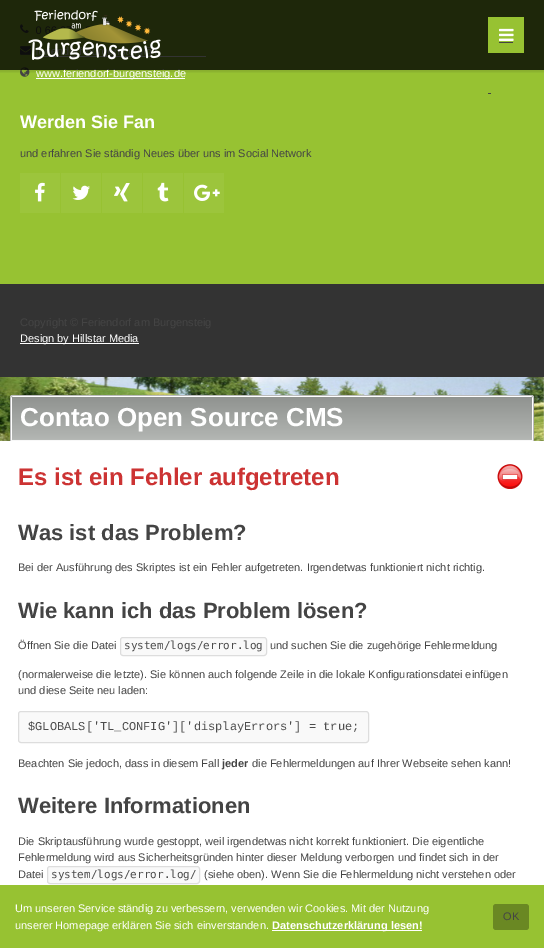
%!PS
<< /PageSize [544 948] /PageUsesTransparency true >> setpagedevice
/alpha { dup .setfillconstantalpha .setstrokeconstantalpha } def
/roundrect { 5 dict begin { /r /h /w /y /x } { exch def } forall
  x r add y moveto x w add y 2 copy h add r arct x w add y h add x 1 index r arct
  x y h add x y r arct x y 2 copy exch w add exch r arct closepath end } def
/shadow { 12 dict begin { /a /b /q /h /w /y /x } { exch def } forall gsave /was 0 def
  9 -2 -9 { dup b mul 4 div /e exch def 1 sub .425 mul 2.718 exch exp 1 add a .99 .min exch div /now exch def
    1 1 now sub 1 was sub div sub alpha /was now def
    w h .min e 2 mul add 0 gt { x e sub y e sub w e 2 mul add h e 2 mul add
      q e add b .6 mul add w h .min 2 div e add .min 0 .max roundrect fill } if } for grestore end } def
/picture { 5 dict begin { /h /w /y /x /name } { exch def } forall
  gsave x y translate w h scale
  w h 8 [w 0 0 h 0 0] name (r) file false 3 colorimage grestore end } def
0 .pushpdf14devicefilter
0 948 translate 1 -1 scale
4 setmiterlimit
1 setgray
0 0 544 948 rectfill
(img1.rgb) 0 377 544 64 picture
0.592 0.761 0.196 setrgbcolor
0 0 544 284 rectfill
(img4.rgb) 20 24 9 9 picture
(img5.rgb) 20 46 11 9 picture
1 setgray
36 56 170 1 rectfill
(img6.rgb) 20 67 10 10 picture
gsave
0 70 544 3 rectclip
0 setgray
-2 -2 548 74 0 1 0.1 shadow
grestore
36 78 149 1 rectfill
/LiberationSans-Regular [11 0 0 -11 0 0] selectfont
36 77 moveto (www.feriendorf-burgensteig.de) show
0.8 alpha
0 setgray
0 0 544 70 rectfill
1 alpha
(img2.rgb) 28 10 133 50 picture
0.592 0.761 0.196 setrgbcolor
488 17 36 36 rectfill
0.267 setgray
499 42 14 1 rectfill
(img3.rgb) 499 28 15 13 picture
488 93 3 1 rectfill
/LiberationSans-Bold [18 0 0 -18 0 0] selectfont
1 setgray
20 128 moveto (Werden Sie Fan) show
/LiberationSans-Regular [11 0 0 -11 0 0] selectfont
0.267 setgray
20 157 moveto (und erfahren Sie ständig Neues über uns im Social Network) show
0.612 0.773 0.235 setrgbcolor
20 173 40 40 rectfill
(img7.rgb) 35 182 10 20 picture
61 173 40 40 rectfill
(img8.rgb) 72 185 18 15 picture
102 173 40 40 rectfill
(img9.rgb) 114 183 16 19 picture
143 173 40 40 rectfill
(img10.rgb) 157 182 12 20 picture
184 173 40 40 rectfill
(img11.rgb) 194 184 26 17 picture
0.2 setgray
0 284 544 93 rectfill
0.267 setgray
20 326 moveto (Copyright © Feriendorf am Burgensteig) show
1 setgray
20 343 119 1 rectfill
20 342 moveto (Design by Hillstar Media) show
newpath 13 395 moveto 531 395 lineto 532.5 395 534 396.5 534 398 curveto 534 441 lineto 10 441 lineto 10 398 lineto 10 396.5 11.5 395 13 395 curveto closepath fill
0.733 setgray
newpath 13 395 moveto 531 395 lineto 533 395 534 396 534 398 curveto 534 441 lineto 10 441 lineto 10 398 lineto 10 396 11 395 13 395 curveto closepath 13 396 moveto 531 396 lineto 532 396 533 397 533 398 curveto 533 441 lineto 11 441 lineto 11 398 lineto 11 397 12 396 13 396 curveto closepath eofill
gsave newpath 15 397 moveto 529 397 lineto 530.5 397 532 398.5 532 400 curveto 532 440 lineto 12 440 lineto 12 400 lineto 12 398.5 13.5 397 15 397 curveto closepath clip newpath
<< /ShadingType 2 /ColorSpace /DeviceRGB /Coords [272 397 272 440] /Extend [true true] /Function << /FunctionType 2 /Domain [0 1] /C0 [0.565 0.576 0.565] /C1 [0.702 0.714 0.702] /N 1 >> >> shfill grestore
/LiberationSans-Bold [26 0 0 -26 0 0] selectfont
1 setgray
20 426 moveto (Contao Open Source CMS) show
0.8 setgray
0 444 544 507 3 3 1 shadow
1 setgray
0 441 544 444 rectfill
(img12.rgb) 497 464 26 25 picture
/LiberationSans-Bold [24 0 0 -24 0 0] selectfont
0.8 0.2 0.2 setrgbcolor
18 485 moveto (Es ist ein Fehler aufgetreten) show
/LiberationSans-Bold [22 0 0 -22 0 0] selectfont
0.267 setgray
18 540 moveto (Was ist das Problem?) show
/LiberationSans-Regular [11 0 0 -11 0 0] selectfont
18 571 moveto (Bei der Ausführung des Skriptes ist ein Fehler aufgetreten. Irgendetwas funktioniert nicht richtig.) show
/LiberationSans-Bold [22 0 0 -22 0 0] selectfont
18 618 moveto (Wie kann ich das Problem lösen?) show
/LiberationSans-Regular [11 0 0 -11 0 0] selectfont
18 649 moveto (Öffnen Sie die Datei) show
0.976 setgray
120.5 637.5 146 18 2.5 roundrect gsave fill grestore
0.867 setgray
stroke
/DejaVuSansMono-Regular [11 0 0 -11 0 0] selectfont
0.298 setgray
124 649 moveto (system/logs/error.log) show
/LiberationSans-Regular [11 0 0 -11 0 0] selectfont
0.267 setgray
270 649 moveto (und suchen Sie die zugehörige Fehlermeldung) show
18 678 moveto (\(normalerweise die letzte\). Sie können auch folgende Zeile in die lokale Konfigurationsdatei einfügen) show
18 694 moveto (und diese Seite neu laden:) show
0.976 setgray
18.5 711.5 350 31 2.5 roundrect gsave fill grestore
0.867 setgray
stroke
/LiberationMono-Regular [12 0 0 -12 0 0] selectfont
0.298 setgray
28 730 moveto ($GLOBALS['TL_CONFIG']['displayErrors'] = true;) show
/LiberationSans-Regular [11 0 0 -11 0 0] selectfont
0.267 setgray
18 767 moveto (Beachten Sie jedoch, dass in diesem Fall) show
/LiberationSans-Bold [11 0 0 -11 0 0] selectfont
222 767 moveto (jeder) show
/LiberationSans-Regular [11 0 0 -11 0 0] selectfont
252 767 moveto (die Fehlermeldungen auf Ihrer Webseite sehen kann!) show
/LiberationSans-Bold [22 0 0 -22 0 0] selectfont
18 813 moveto (Weitere Informationen) show
/LiberationSans-Regular [11 0 0 -11 0 0] selectfont
18 845 moveto (Die Skriptausführung wurde gestoppt, weil irgendetwas nicht korrekt funktioniert. Die eigentliche) show
18 861 moveto (Fehlermeldung wird aus Sicherheitsgründen hinter dieser Meldung verborgen und findet sich in der) show
18 878 moveto (Datei) show
0.976 setgray
47.5 866.5 152 17 2.5 roundrect gsave fill grestore
0.867 setgray
stroke
/DejaVuSansMono-Regular [11 0 0 -11 0 0] selectfont
0.298 setgray
51 878 moveto (system/logs/error.log/) show
/LiberationSans-Regular [11 0 0 -11 0 0] selectfont
0.267 setgray
204 878 moveto (\(siehe oben\). Wenn Sie die Fehlermeldung nicht verstehen oder) show
0.592 0.761 0.196 setrgbcolor
0 885 544 63 rectfill
1 setgray
15 912 moveto (Um unseren Service ständig zu verbessern, verwenden wir Cookies. Mit der Nutzung) show
0.416 0.533 0.137 setrgbcolor
493 904 36 26 3 roundrect fill
0.267 setgray
503 920 moveto (OK) show
1 setgray
15 929 moveto (unserer Homepage erklären Sie sich einverstanden.) show
272 930 150 1 rectfill
/LiberationSans-Bold [11 0 0 -11 0 0] selectfont
272 929 moveto (Datenschutzerklärung lesen!) show
.poppdf14devicefilter showpage
